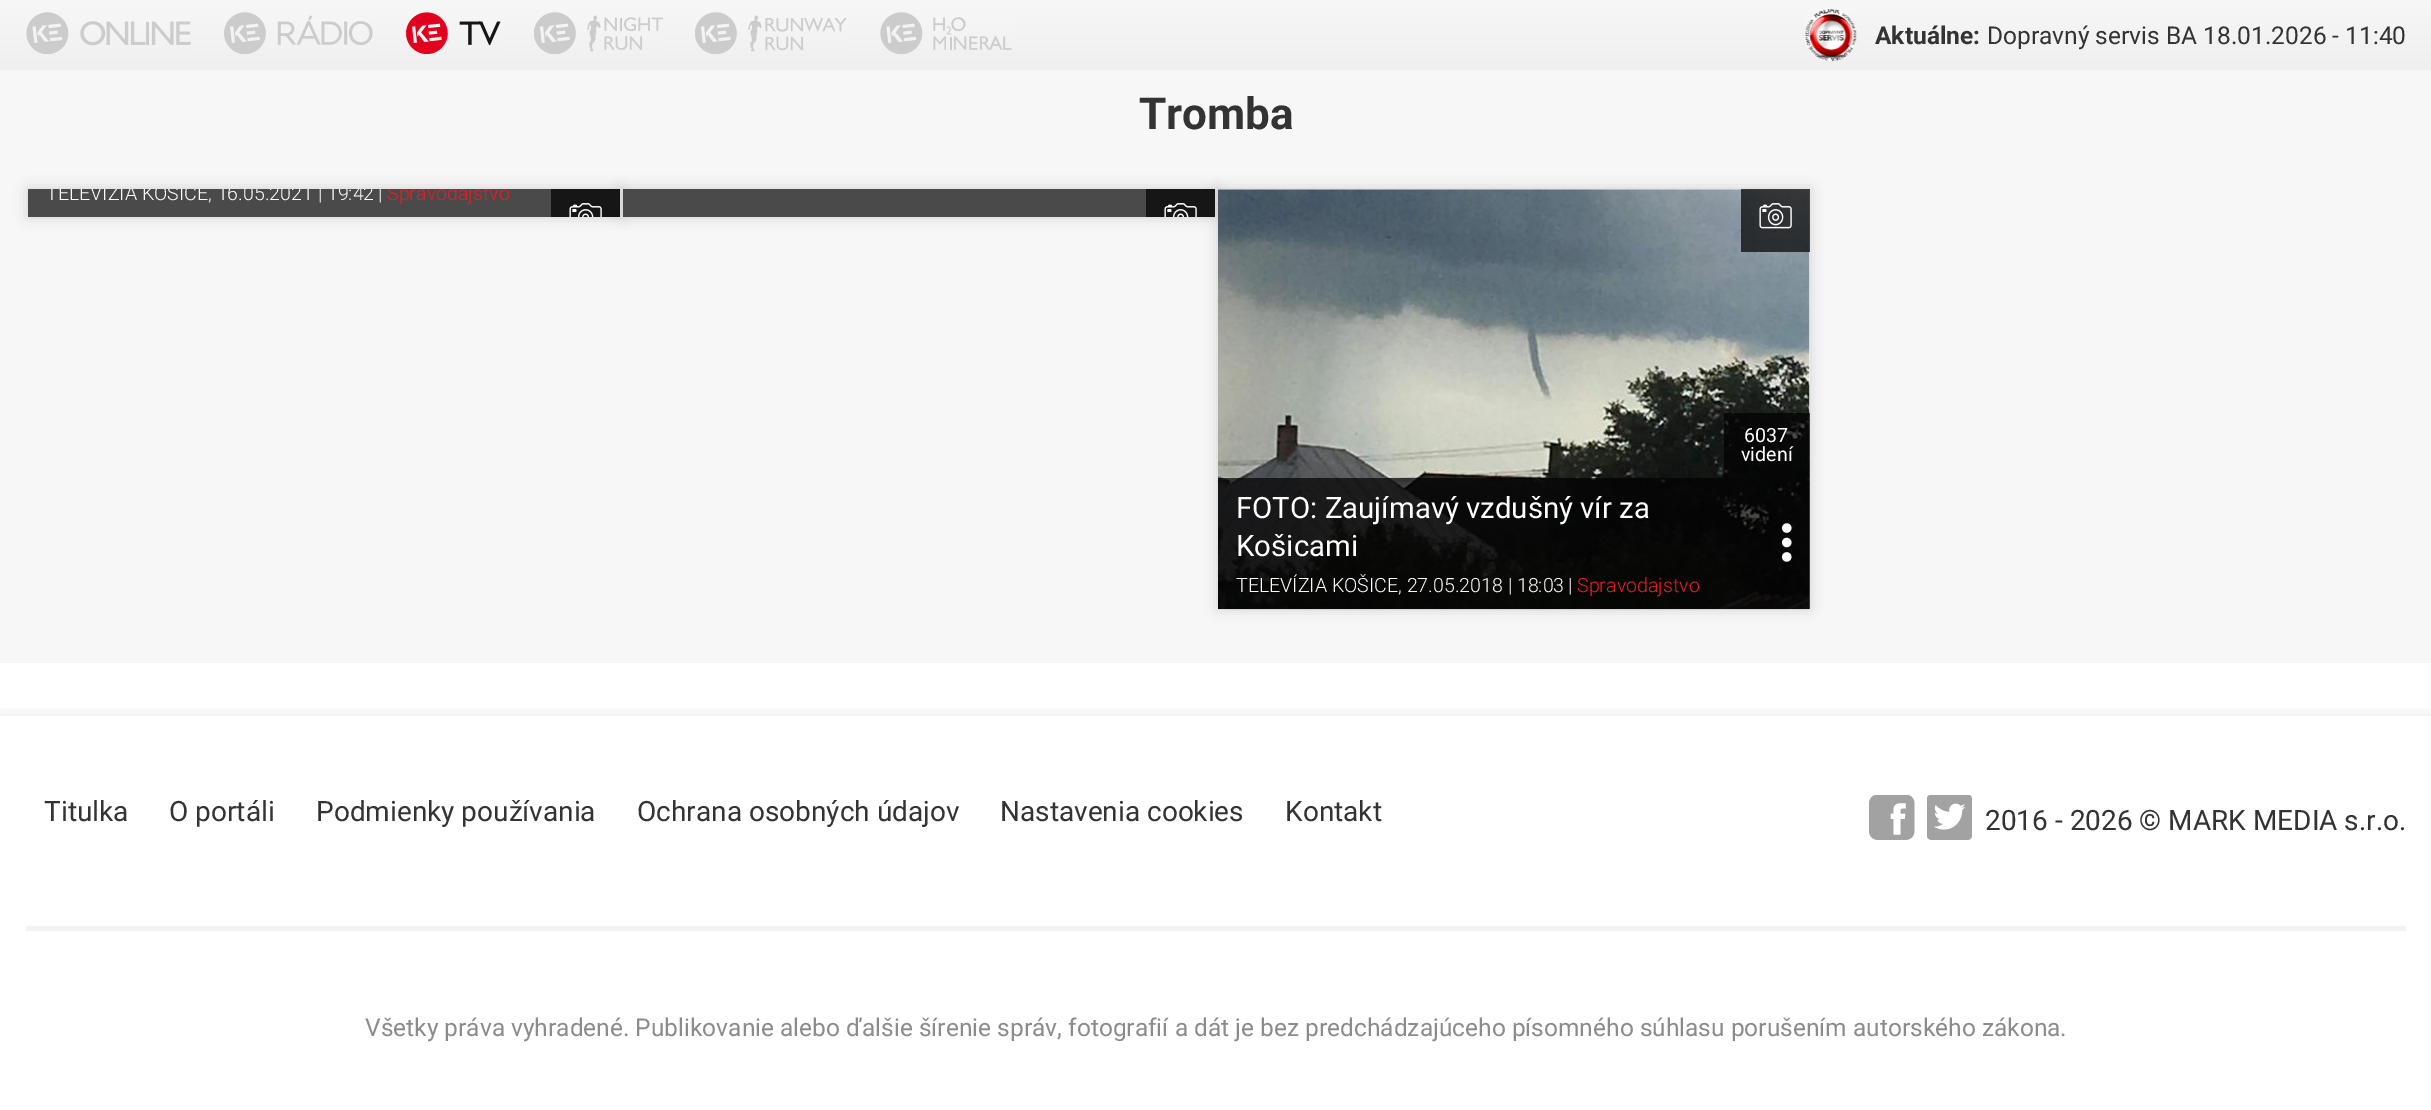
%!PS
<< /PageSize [2431 1110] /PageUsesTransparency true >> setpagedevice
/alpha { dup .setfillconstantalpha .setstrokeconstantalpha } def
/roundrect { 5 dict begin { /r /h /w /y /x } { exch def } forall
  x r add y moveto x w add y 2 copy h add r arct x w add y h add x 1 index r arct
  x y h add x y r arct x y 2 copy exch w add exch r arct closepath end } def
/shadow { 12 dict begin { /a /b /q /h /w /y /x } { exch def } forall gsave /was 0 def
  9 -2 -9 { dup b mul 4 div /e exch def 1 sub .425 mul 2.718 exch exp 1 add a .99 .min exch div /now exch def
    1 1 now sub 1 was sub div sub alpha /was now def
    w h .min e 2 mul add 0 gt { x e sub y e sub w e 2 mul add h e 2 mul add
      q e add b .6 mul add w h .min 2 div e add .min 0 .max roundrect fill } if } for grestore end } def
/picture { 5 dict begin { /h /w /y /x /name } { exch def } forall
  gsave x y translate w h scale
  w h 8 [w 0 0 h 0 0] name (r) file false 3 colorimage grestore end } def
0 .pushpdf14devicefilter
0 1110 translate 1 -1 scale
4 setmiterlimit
1 setgray
0 0 2431 1110 rectfill
gsave newpath 0 0 moveto 2431 0 lineto 2431 70 lineto 0 70 lineto closepath clip newpath
<< /ShadingType 2 /ColorSpace /DeviceRGB /Coords [1216 0 1216 70] /Extend [true true] /Function << /FunctionType 2 /Domain [0 1] /C0 [0.969 0.969 0.969] /C1 [0.937 0.937 0.937] /N 1 >> >> shfill grestore
(img1.rgb) 26 12 165 42 picture
(img2.rgb) 224 12 149 42 picture
(img3.rgb) 406 12 95 42 picture
(img4.rgb) 534 12 129 42 picture
(img5.rgb) 695 12 152 42 picture
(img6.rgb) 880 12 132 42 picture
(img7.rgb) 1804 9 53 53 picture
/Roboto-Bold [24.5 0 0 -24.5 0 0] selectfont
0.2 setgray
1875 44 moveto (Aktuálne:) show
/Roboto-Regular [24.5 0 0 -24.5 0 0] selectfont
1987 44 moveto (Dopravný servis BA 18.01.2026 - 11:40) show
0.969 setgray
0 70 2431 593 rectfill
/Roboto-Bold [44 0 0 -44 0 0] selectfont
0.2 setgray
1139 129 moveto (Tromba) show
0 setgray
28 189 592 28 0 7 0.15 shadow
0.29 setgray
28 189 523 28 rectfill
gsave
28 189 592 28 rectclip
/Roboto-Light [19.6 0 0 -19.6 0 0] selectfont
1 setgray
46 200 moveto (TELEVÍZIA KOŠICE, 16.05.2021 | 19:42) show
378 200 moveto (|) show
0.922 0.11 0.141 setrgbcolor
387 200 moveto (Spravodajstvo) show
grestore
0.086 setgray
551 189 69 28 rectfill
(img8.rgb) 569 203 33 14 picture
0 setgray
623 189 592 28 0 7 0.15 shadow
0.29 setgray
623 189 523 28 rectfill
0.086 setgray
1146 189 69 28 rectfill
(img8.rgb) 1164 203 33 14 picture
0 setgray
1218 189 592 420 0 7 0.15 shadow
0.969 setgray
1218 189 592 420 rectfill
(img9.rgb) 1218 189 592 421 picture
0.7 alpha
0 setgray
1741 189 69 63 rectfill
1 alpha
(img10.rgb) 1759 203 33 26 picture
0.7 alpha
1724 413 86 65 rectfill
/Roboto-Regular [19.6 0 0 -19.6 0 0] selectfont
1 alpha
1 setgray
1744 442 moveto (6037) show
1741 461 moveto (videní) show
0.7 alpha
0 setgray
1218 478 592 131 rectfill
/Roboto-Regular [29.4 0 0 -29.4 0 0] selectfont
1 alpha
1 setgray
1236 518 moveto (FOTO: Zaujímavý vzdušný vír za) show
1236 556 moveto (Košicami) show
/Roboto-Light [19.6 0 0 -19.6 0 0] selectfont
1236 592 moveto (TELEVÍZIA KOŠICE, 27.05.2018 | 18:03) show
1568 592 moveto (|) show
0.922 0.11 0.141 setrgbcolor
1577 592 moveto (Spravodajstvo) show
(img11.rgb) 1781 523 11 39 picture
gsave
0 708 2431 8 rectclip
0 setgray
0 716 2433 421 0 9 0.1 shadow
grestore
/Roboto-Regular [28 0 0 -28 0 0] selectfont
0.2 setgray
44 821 moveto (Titulka) show
169 821 moveto (O portáli) show
316 821 moveto (Podmienky používania) show
637 821 moveto (Ochrana osobných údajov) show
1000 821 moveto (Nastavenia cookies) show
1285 821 moveto (Kontakt) show
(img12.rgb) 1869 795 46 45 picture
(img13.rgb) 1927 795 45 45 picture
1985 830 moveto (2016 - 2026 © MARK MEDIA s.r.o.) show
0.949 setgray
26 926 2380 5 rectfill
/Roboto-Regular [24.5 0 0 -24.5 0 0] selectfont
0.545 setgray
365 1036 moveto (Všetky práva vyhradené. Publikovanie alebo ďalšie šírenie správ, fotografií a dát je bez predchádzajúceho písomného súhlasu porušením autorského zákona.) show
.poppdf14devicefilter showpage
